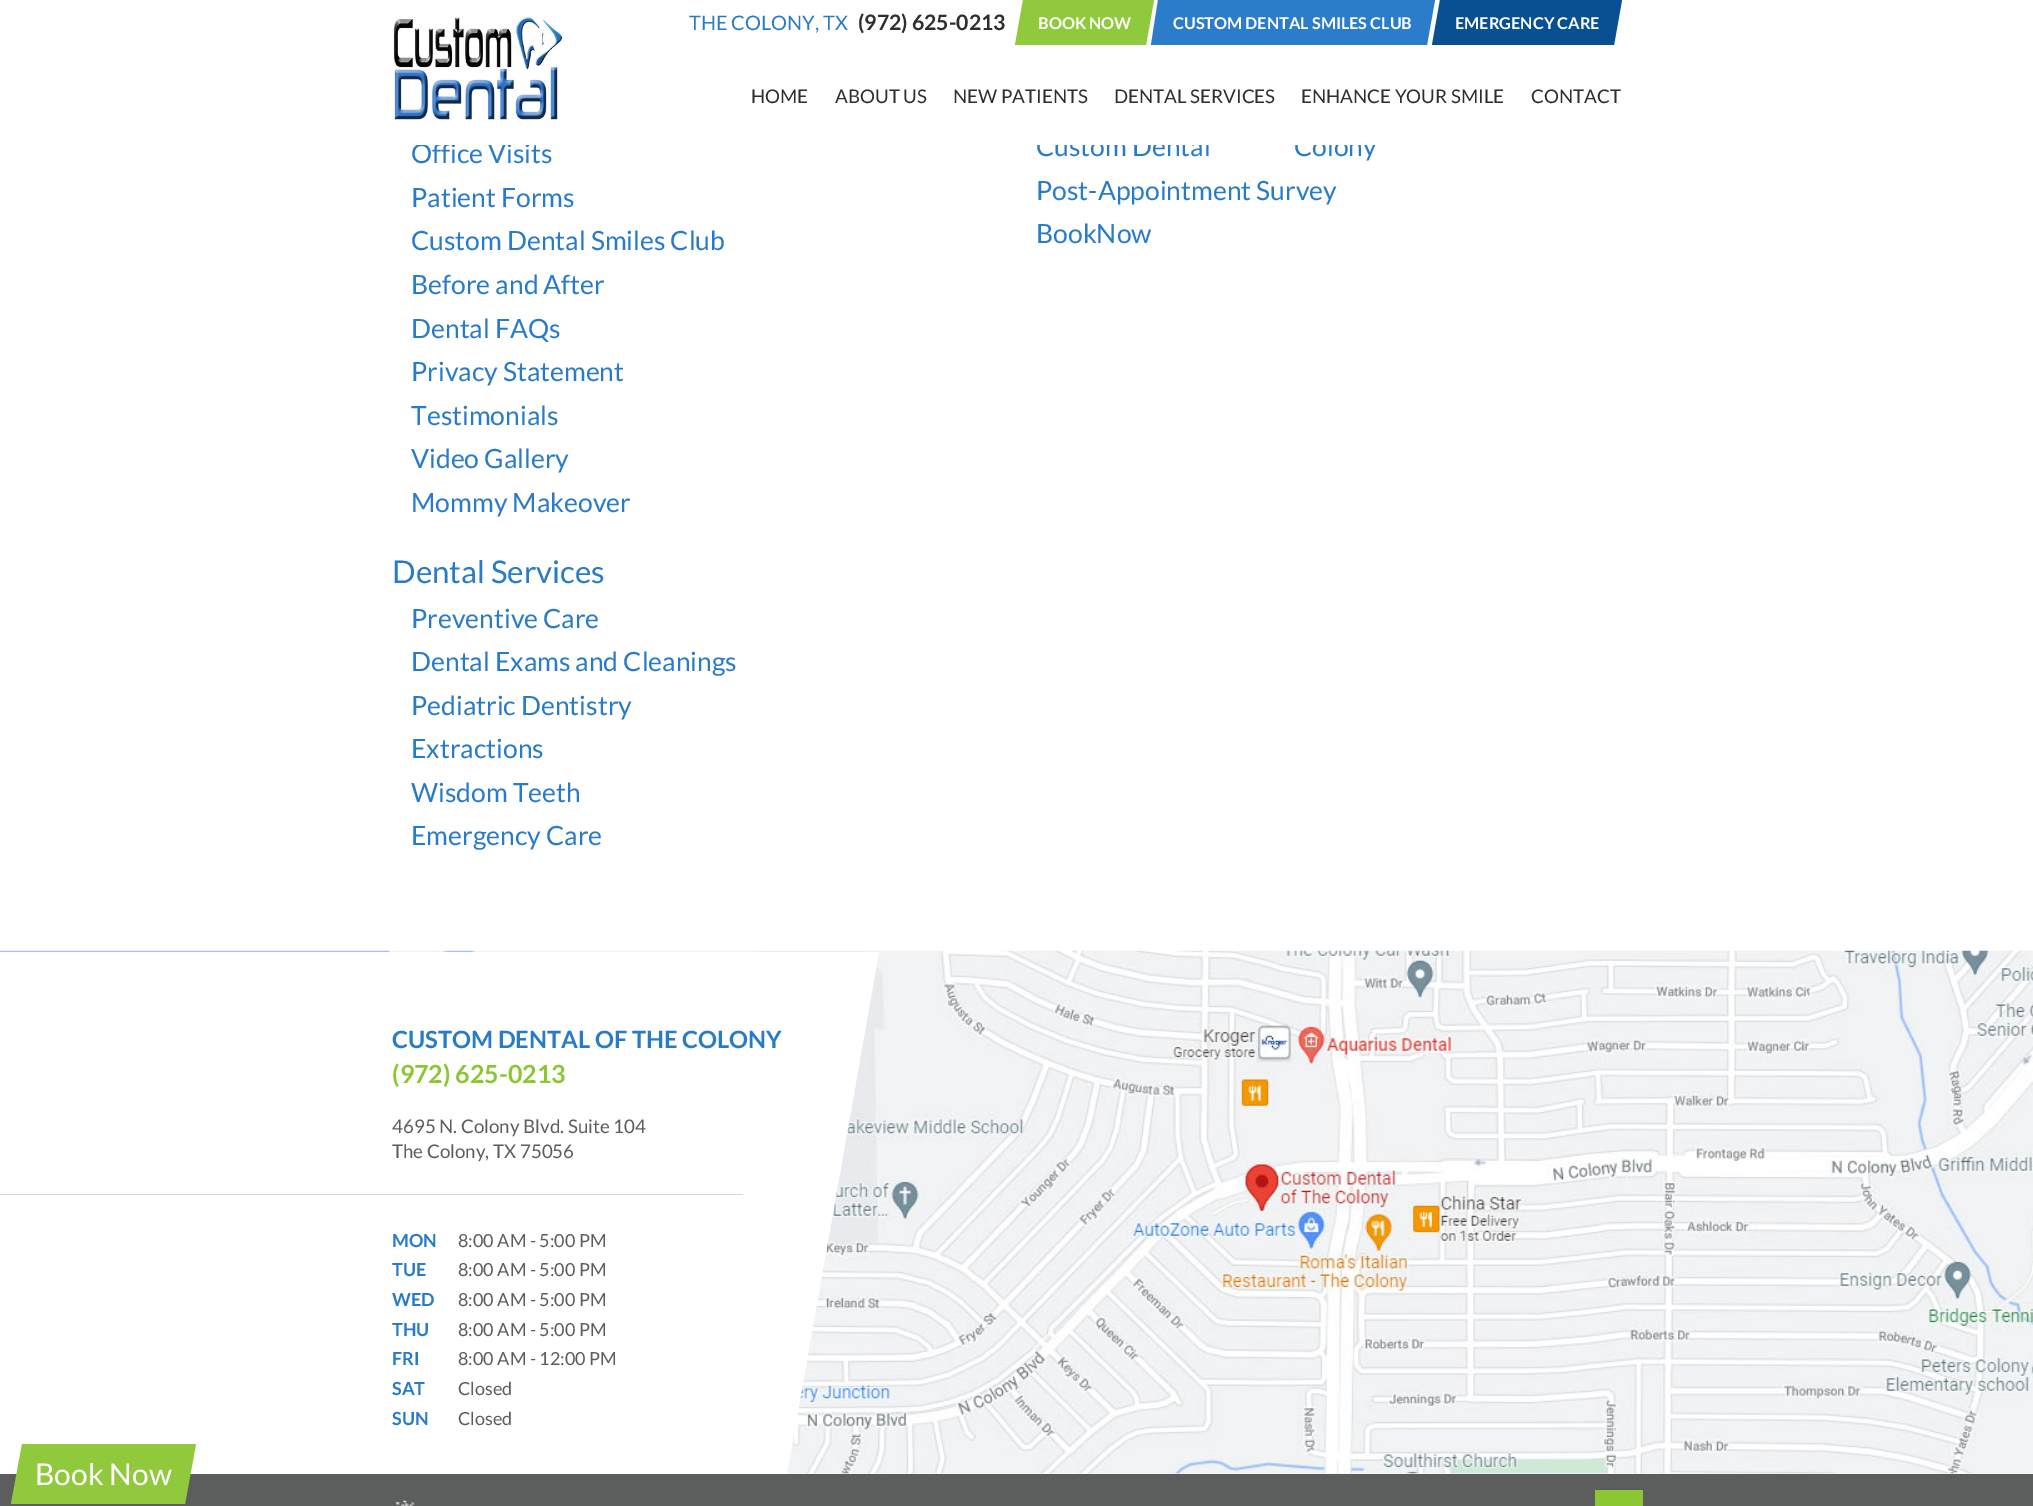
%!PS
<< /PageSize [2033 1506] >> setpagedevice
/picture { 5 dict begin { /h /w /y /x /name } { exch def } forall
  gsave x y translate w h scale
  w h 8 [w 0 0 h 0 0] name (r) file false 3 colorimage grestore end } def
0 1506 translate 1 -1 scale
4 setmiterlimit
1 setgray
0 0 2033 1506 rectfill
/Lato-Regular [26.5 0 0 -26.5 0 0] selectfont
0.157 0.482 0.784 setrgbcolor
411 163 moveto (Office Visits) show
1036 156 moveto (Custom Dental) show
1294 156 moveto (Colony) show
1 setgray
416 136 961 9 rectfill
(img1.rgb) 393 15 170 105 picture
/Lato-Regular [20 0 0 -20 0 0] selectfont
0.157 0.482 0.784 setrgbcolor
689 30 moveto (THE COLONY, TX) show
/Lato-Bold [21.25 0 0 -21.25 0 0] selectfont
0.188 0.176 0.176 setrgbcolor
858 30 moveto (\(972\) 625-0213) show
0.565 0.788 0.231 setrgbcolor
newpath 1023 0 moveto 1154 0 lineto 1146 45 lineto 1015 45 lineto closepath fill
/Lato-Bold [16.25 0 0 -16.25 0 0] selectfont
1 setgray
1038 29 moveto (BOOK NOW) show
0.173 0.49 0.788 setrgbcolor
newpath 1158 0 moveto 1435 0 lineto 1427 45 lineto 1151 45 lineto closepath fill
1 setgray
1173 29 moveto (CUSTOM DENTAL SMILES CLUB) show
0.035 0.314 0.576 setrgbcolor
newpath 1440 0 moveto 1622 0 lineto 1614 45 lineto 1432 45 lineto closepath fill
1 setgray
1455 29 moveto (EMERGENCY CARE) show
/Lato-Regular [18.75 0 0 -18.75 0 0] selectfont
0.188 0.176 0.176 setrgbcolor
751 103 moveto (HOME) show
835 103 moveto (ABOUT US) show
953 103 moveto (NEW PATIENTS) show
1114 103 moveto (DENTAL SERVICES) show
1301 103 moveto (ENHANCE YOUR SMILE) show
1531 103 moveto (CONTACT) show
/Lato-Regular [26.5 0 0 -26.5 0 0] selectfont
0.157 0.482 0.784 setrgbcolor
411 207 moveto (Patient Forms) show
411 250 moveto (Custom Dental Smiles Club) show
411 294 moveto (Before and After) show
411 338 moveto (Dental FAQs) show
411 381 moveto (Privacy Statement) show
411 425 moveto (Testimonials) show
411 468 moveto (Video Gallery) show
411 512 moveto (Mommy Makeover) show
/Lato-Regular [31.25 0 0 -31.25 0 0] selectfont
392 583 moveto (Dental Services) show
/Lato-Regular [26.5 0 0 -26.5 0 0] selectfont
411 628 moveto (Preventive Care) show
411 671 moveto (Dental Exams and Cleanings) show
411 715 moveto (Pediatric Dentistry) show
411 758 moveto (Extractions) show
411 802 moveto (Wisdom Teeth) show
411 845 moveto (Emergency Care) show
1036 200 moveto (Post-Appointment Survey) show
1036 243 moveto (BookNow) show
0.945 0.953 0.957 setrgbcolor
787 1473 1246 1 rectfill
(img2.rgb) 0 950 2033 524 picture
1 setgray
newpath -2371 952 moveto 879 952 lineto 787 1474 lineto -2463 1474 lineto closepath fill
/Lato-Bold [23.75 0 0 -23.75 0 0] selectfont
0.157 0.482 0.784 setrgbcolor
392 1048 moveto (CUSTOM DENTAL OF THE COLONY) show
/Lato-Bold [25 0 0 -25 0 0] selectfont
0.541 0.78 0.188 setrgbcolor
392 1083 moveto (\(972\) 625-0213) show
/Lato-Regular [18.75 0 0 -18.75 0 0] selectfont
0.361 0.365 0.365 setrgbcolor
392 1133 moveto (4695 N. Colony Blvd. Suite 104) show
392 1158 moveto (The Colony, TX 75056) show
0.855 setgray
0 1194 743 1 rectfill
/Lato-Bold [18 0 0 -18 0 0] selectfont
0.157 0.482 0.784 setrgbcolor
392 1247 moveto (MON) show
/Lato-Regular [18 0 0 -18 0 0] selectfont
0.361 0.365 0.365 setrgbcolor
458 1247 moveto (8:00 AM - 5:00 PM) show
/Lato-Bold [18 0 0 -18 0 0] selectfont
0.157 0.482 0.784 setrgbcolor
392 1276 moveto (TUE) show
/Lato-Regular [18 0 0 -18 0 0] selectfont
0.361 0.365 0.365 setrgbcolor
458 1276 moveto (8:00 AM - 5:00 PM) show
/Lato-Bold [18 0 0 -18 0 0] selectfont
0.157 0.482 0.784 setrgbcolor
392 1306 moveto (WED) show
/Lato-Regular [18 0 0 -18 0 0] selectfont
0.361 0.365 0.365 setrgbcolor
458 1306 moveto (8:00 AM - 5:00 PM) show
/Lato-Bold [18 0 0 -18 0 0] selectfont
0.157 0.482 0.784 setrgbcolor
392 1336 moveto (THU) show
/Lato-Regular [18 0 0 -18 0 0] selectfont
0.361 0.365 0.365 setrgbcolor
458 1336 moveto (8:00 AM - 5:00 PM) show
/Lato-Bold [18 0 0 -18 0 0] selectfont
0.157 0.482 0.784 setrgbcolor
392 1365 moveto (FRI) show
/Lato-Regular [18 0 0 -18 0 0] selectfont
0.361 0.365 0.365 setrgbcolor
458 1365 moveto (8:00 AM - 12:00 PM) show
/Lato-Bold [18 0 0 -18 0 0] selectfont
0.157 0.482 0.784 setrgbcolor
392 1395 moveto (SAT) show
/Lato-Regular [18 0 0 -18 0 0] selectfont
0.361 0.365 0.365 setrgbcolor
458 1395 moveto (Closed) show
/Lato-Bold [18 0 0 -18 0 0] selectfont
0.157 0.482 0.784 setrgbcolor
392 1425 moveto (SUN) show
/Lato-Regular [18 0 0 -18 0 0] selectfont
0.361 0.365 0.365 setrgbcolor
458 1425 moveto (Closed) show
0 1474 2033 32 rectfill
0.565 0.788 0.231 setrgbcolor
newpath 22 1444 moveto 196 1444 lineto 185 1504 lineto 11 1504 lineto closepath fill
/Lato-Regular [30 0 0 -30 0 0] selectfont
1 setgray
35 1485 moveto (Book Now) show
(img3.rgb) 395 1500 20 6 picture
0.541 0.78 0.188 setrgbcolor
1595 1490 48 16 rectfill
showpage
